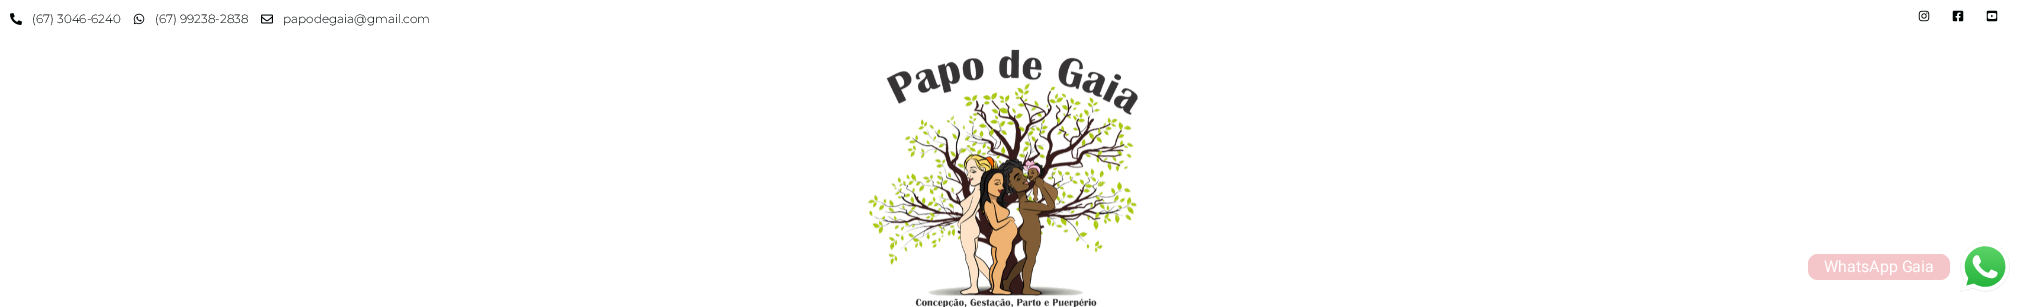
%!PS
<< /PageSize [2025 307] >> setpagedevice
/roundrect { 5 dict begin { /r /h /w /y /x } { exch def } forall
  x r add y moveto x w add y 2 copy h add r arct x w add y h add x 1 index r arct
  x y h add x y r arct x y 2 copy exch w add exch r arct closepath end } def
/picture { 5 dict begin { /h /w /y /x /name } { exch def } forall
  gsave x y translate w h scale
  w h 8 [w 0 0 h 0 0] name (r) file false 3 colorimage grestore end } def
0 307 translate 1 -1 scale
4 setmiterlimit
1 setgray
0 0 2025 307 rectfill
(img1.rgb) 10 13 12 12 picture
/Montserrat-Light [12 0 0 -12 0 0] selectfont
0.004 0.024 0.027 setrgbcolor
32 23 moveto (\(67\) 3046-6240) show
(img2.rgb) 133 13 12 12 picture
155 23 moveto (\(67\) 99238-2838) show
(img3.rgb) 261 14 12 10 picture
283 23 moveto (papodegaia@gmail.com) show
(img4.rgb) 1918 10 12 12 picture
(img5.rgb) 1952 10 12 12 picture
(img6.rgb) 1986 10 12 12 picture
(img7.rgb) 867 49 271 258 picture
0.957 0.776 0.792 setrgbcolor
1808 254 142 26 10 roundrect fill
/Roboto-Regular [16 0 0 -16 0 0] selectfont
1 setgray
1824 272 moveto (WhatsApp Gaia) show
(img8.rgb) 1960 242 50 50 picture
showpage
